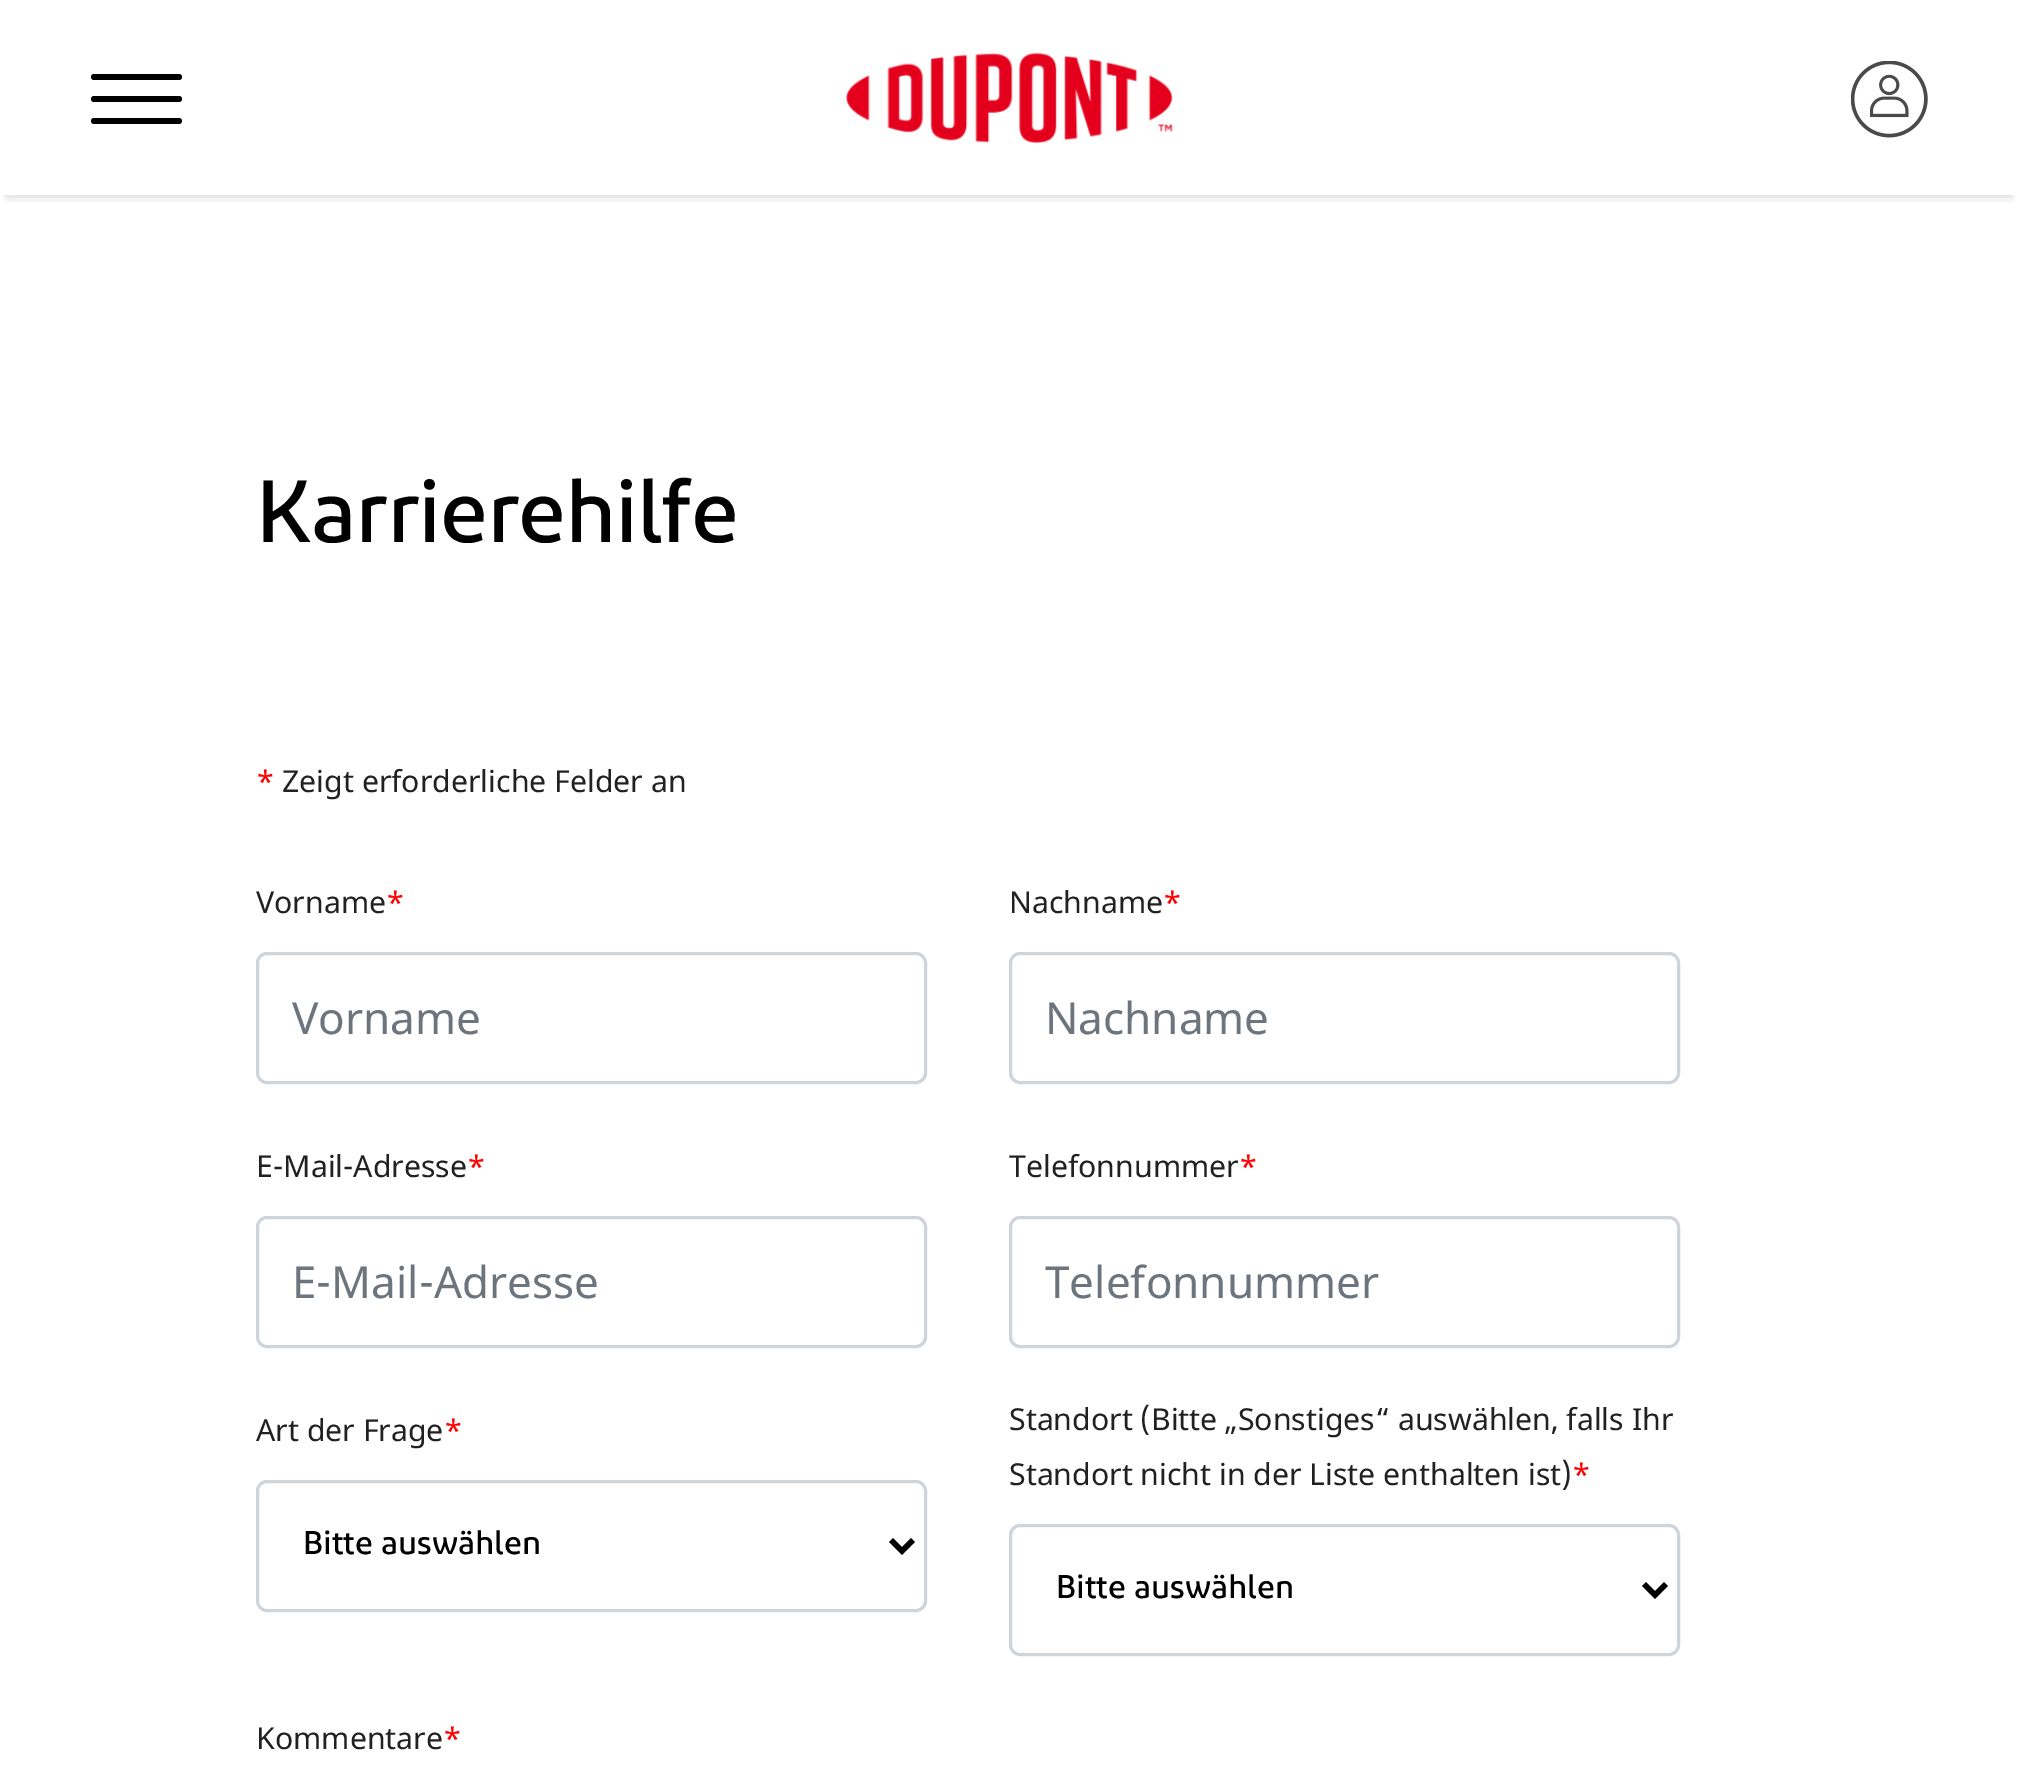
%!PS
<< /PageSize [2018 1787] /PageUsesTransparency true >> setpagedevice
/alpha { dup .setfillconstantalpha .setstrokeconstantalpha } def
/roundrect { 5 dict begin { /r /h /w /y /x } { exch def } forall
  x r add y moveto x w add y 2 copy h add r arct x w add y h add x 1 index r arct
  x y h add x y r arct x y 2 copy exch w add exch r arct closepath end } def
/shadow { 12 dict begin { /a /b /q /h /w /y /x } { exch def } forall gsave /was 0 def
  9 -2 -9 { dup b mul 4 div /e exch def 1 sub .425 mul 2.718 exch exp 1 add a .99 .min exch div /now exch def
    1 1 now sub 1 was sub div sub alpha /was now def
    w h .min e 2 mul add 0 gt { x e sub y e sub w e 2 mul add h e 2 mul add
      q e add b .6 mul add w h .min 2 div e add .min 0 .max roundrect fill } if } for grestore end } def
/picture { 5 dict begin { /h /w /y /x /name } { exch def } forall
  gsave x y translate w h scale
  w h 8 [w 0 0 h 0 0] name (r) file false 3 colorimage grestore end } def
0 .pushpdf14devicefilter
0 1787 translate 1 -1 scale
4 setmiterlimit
1 setgray
0 0 2018 1787 rectfill
gsave
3 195 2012 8 rectclip
0 setgray
8 14 2002 179 0 7 0.3 shadow
grestore
0 setgray
91 74 91 6 3 roundrect fill
91 96 91 6 3 roundrect fill
91 118 91 6 3 roundrect fill
(img1.rgb) 846 52 327 92 picture
(img2.rgb) 1851 61 77 77 picture
/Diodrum-Medium [88 0 0 -88 0 0] selectfont
256 542 moveto -1.4 0 (Karrierehilfe) ashow
/NotoSans-Regular [30.25 0 0 -30.25 0 0] selectfont
1 0 0 setrgbcolor
256 792 moveto (*) show
0.129 setgray
282 792 moveto (Zeigt erforderliche Felder an) show
256 913 moveto (Vorname) show
1 0 0 setrgbcolor
386 913 moveto (*) show
0.808 0.831 0.855 setrgbcolor
3 setlinewidth
257.5 953.5 668 129 9.5 roundrect stroke
/NotoSans-Regular [44 0 0 -44 0 0] selectfont
0.424 0.459 0.49 setrgbcolor
292 1034 moveto (Vorname) show
/NotoSans-Regular [30.25 0 0 -30.25 0 0] selectfont
0.129 setgray
1009 913 moveto (Nachname) show
1 0 0 setrgbcolor
1163 913 moveto (*) show
0.808 0.831 0.855 setrgbcolor
1010.5 953.5 668 129 9.5 roundrect stroke
/NotoSans-Regular [44 0 0 -44 0 0] selectfont
0.424 0.459 0.49 setrgbcolor
1045 1034 moveto (Nachname) show
/NotoSans-Regular [30.25 0 0 -30.25 0 0] selectfont
0.129 setgray
256 1177 moveto (E-Mail-Adresse) show
1 0 0 setrgbcolor
467 1177 moveto (*) show
0.808 0.831 0.855 setrgbcolor
257.5 1217.5 668 129 9.5 roundrect stroke
/NotoSans-Regular [44 0 0 -44 0 0] selectfont
0.424 0.459 0.49 setrgbcolor
292 1298 moveto (E-Mail-Adresse) show
/NotoSans-Regular [30.25 0 0 -30.25 0 0] selectfont
0.129 setgray
1009 1177 moveto (Telefonnummer) show
1 0 0 setrgbcolor
1239 1177 moveto (*) show
0.808 0.831 0.855 setrgbcolor
1010.5 1217.5 668 129 9.5 roundrect stroke
/NotoSans-Regular [44 0 0 -44 0 0] selectfont
0.424 0.459 0.49 setrgbcolor
1045 1298 moveto (Telefonnummer) show
/NotoSans-Regular [30.25 0 0 -30.25 0 0] selectfont
0.129 setgray
256 1441 moveto (Art der Frage) show
1 0 0 setrgbcolor
444 1441 moveto (*) show
0.808 0.831 0.855 setrgbcolor
257.5 1481.5 668 129 9.5 roundrect stroke
0 setgray
5.5 setlinewidth
newpath 891 1540 moveto 902 1551 lineto 913 1540 lineto stroke
/Diodrum-Medium [33 0 0 -33 0 0] selectfont
303 1554 moveto (Bitte auswählen) show
/NotoSans-Regular [30.25 0 0 -30.25 0 0] selectfont
0.129 setgray
1009 1430 moveto (Standort \(Bitte „Sonstiges“ auswählen, falls Ihr) show
1009 1485 moveto (Standort nicht in der Liste enthalten ist\)) show
1 0 0 setrgbcolor
1572 1485 moveto (*) show
0.808 0.831 0.855 setrgbcolor
3 setlinewidth
1010.5 1525.5 668 129 9.5 roundrect stroke
0 setgray
5.5 setlinewidth
newpath 1644 1584 moveto 1655 1595 lineto 1666 1584 lineto stroke
/Diodrum-Medium [33 0 0 -33 0 0] selectfont
1056 1598 moveto (Bitte auswählen) show
/NotoSans-Regular [30.25 0 0 -30.25 0 0] selectfont
0.129 setgray
256 1749 moveto (Kommentare) show
1 0 0 setrgbcolor
443 1749 moveto (*) show
.poppdf14devicefilter showpage
